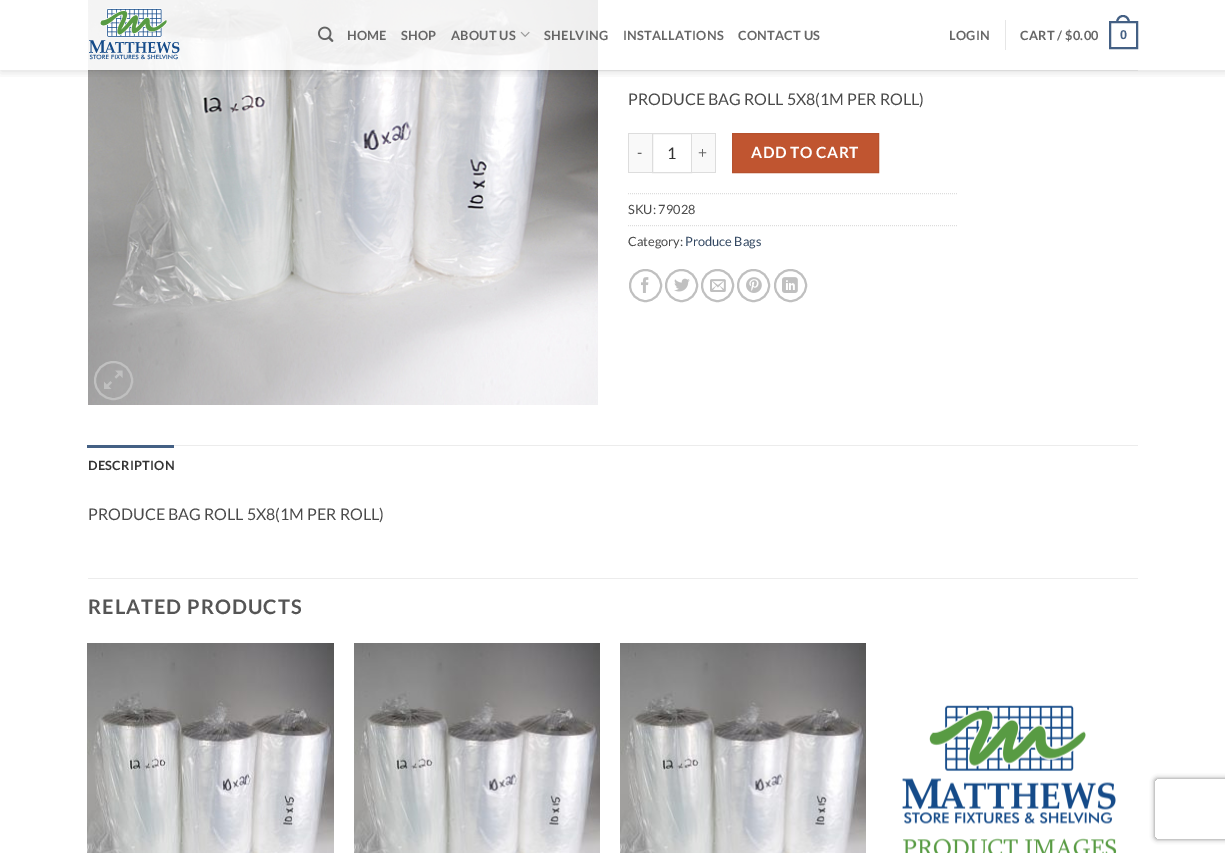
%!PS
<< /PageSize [1225 853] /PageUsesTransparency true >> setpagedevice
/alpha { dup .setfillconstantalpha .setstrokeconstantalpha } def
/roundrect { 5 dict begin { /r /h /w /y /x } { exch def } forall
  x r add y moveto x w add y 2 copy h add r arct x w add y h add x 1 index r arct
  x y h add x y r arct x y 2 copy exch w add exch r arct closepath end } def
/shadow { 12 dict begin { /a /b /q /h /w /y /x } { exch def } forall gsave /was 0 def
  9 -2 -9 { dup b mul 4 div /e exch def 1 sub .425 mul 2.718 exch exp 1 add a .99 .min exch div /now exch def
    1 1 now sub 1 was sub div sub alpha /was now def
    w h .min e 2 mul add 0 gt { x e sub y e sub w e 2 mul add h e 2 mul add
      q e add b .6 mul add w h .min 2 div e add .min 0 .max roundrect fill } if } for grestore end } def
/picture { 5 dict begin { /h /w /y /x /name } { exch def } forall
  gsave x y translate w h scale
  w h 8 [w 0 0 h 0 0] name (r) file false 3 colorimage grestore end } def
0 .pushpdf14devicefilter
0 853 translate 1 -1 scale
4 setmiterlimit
1 setgray
0 0 1225 853 rectfill
(img4.rgb) 88 0 510 405 picture
0.902 setgray
628 31 30 3 rectfill
gsave
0 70 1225 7 rectclip
0 setgray
1 1 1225 70 0 5 0.15 shadow
grestore
0.9 alpha
1 setgray
88 0 570 70 rectfill
1 alpha
(img1.rgb) 89 8 91 52 picture
(img2.rgb) 318 26 16 16 picture
/Lato-Bold [12.75 0 0 -12.75 0 0] selectfont
0.4 setgray
347 40 moveto 0.25 0 (HOME) ashow
401 40 moveto 0.25 0 (SHOP) ashow
451 40 moveto 0.25 0 (ABOUT US) ashow
(img3.rgb) 520 31 10 6 picture
544 40 moveto 0.25 0 (SHELVING) ashow
623 40 moveto 0.25 0 (INSTALLATIONS) ashow
738 40 moveto 0.25 0 (CONTACT US) ashow
949 40 moveto 0.25 0 (LOGIN) ashow
0.902 setgray
1005 20 1 30 rectfill
0.4 setgray
1020 40 moveto 0.25 0 (CART / $0.00) ashow
0.267 0.376 0.518 setrgbcolor
2 setlinewidth
1110 22 27 26 rectstroke
newpath 1123 15 moveto 1127.5 15 1130 19 1130 23 curveto 1116 23 lineto 1116 19 1118.5 15 1123 15 curveto closepath 1123 17 moveto 1126.5 17 1128 20 1128 23 curveto 1118 23 lineto 1118 20 1119.5 17 1123 17 curveto closepath eofill
/LiberationSans-Bold [12.75 0 0 -12.75 0 0] selectfont
1120 39 moveto 0.25 0 (0) ashow
0.1 alpha
0.29 setgray
88 70 1050 1 rectfill
1 alpha
0.753 setgray
newpath 113.5 380.5 18.5 0 360 arc closepath stroke
(img5.rgb) 104 370 19 19 picture
/Lato-Regular [16 0 0 -16 0 0] selectfont
0.29 setgray
628 105 moveto (PRODUCE BAG ROLL 5X8\(1M PER ROLL\)) show
0.976 setgray
629 134 23 38 rectfill
0.867 setgray
628 133 24 1 rectfill
628 172 24 1 rectfill
628 133 1 40 rectfill
/Lato-Regular [15.5 0 0 -15.5 0 0] selectfont
0.4 setgray
637 158 moveto 0.5 0 (-) ashow
0.867 setgray
1 setlinewidth
652.5 133.5 39 39 rectstroke
/Lato-Regular [16 0 0 -16 0 0] selectfont
0.2 setgray
667 159 moveto (1) show
0.976 setgray
692 134 23 38 rectfill
0.867 setgray
692 133 24 1 rectfill
715 133 1 40 rectfill
692 172 24 1 rectfill
/Lato-Regular [15.5 0 0 -15.5 0 0] selectfont
0.4 setgray
698 158 moveto 0.5 0 (+) ashow
0.753 0.333 0.188 setrgbcolor
newpath 732.5 133.5 moveto 878.5 133.5 lineto 878.5 172.5 lineto 732.5 172.5 lineto closepath gsave fill grestore
0.714 0.318 0.18 setrgbcolor
stroke
/Lato-Bold [15.5 0 0 -15.5 0 0] selectfont
1 setgray
751 158 moveto 0.5 0 (ADD TO CART) ashow
0.867 setgray
[1 1] 0 setdash
newpath 628 193.5 moveto 958 193.5 lineto stroke
/Lato-Regular [12.75 0 0 -12.75 0 0] selectfont
0.29 setgray
628 214 moveto (SKU: 79028) show
0.867 setgray
newpath 628 225.5 moveto 958 225.5 lineto stroke
0.29 setgray
628 246 moveto (Category:) show
0.2 0.282 0.384 setrgbcolor
685 246 moveto (Produce Bags) show
0.753 setgray
2 setlinewidth
[] 0 setdash
newpath 645.5 285.5 15.5 0 360 arc closepath stroke
(img6.rgb) 641 277 8 16 picture
newpath 681.5 285.5 15.5 0 360 arc closepath stroke
(img7.rgb) 674 278 16 14 picture
newpath 717.5 285.5 15.5 0 360 arc closepath stroke
(img8.rgb) 710 279 16 13 picture
newpath 753.5 285.5 15.5 0 360 arc closepath stroke
(img9.rgb) 746 277 16 16 picture
newpath 790.5 285.5 15.5 0 360 arc closepath stroke
(img10.rgb) 782 277 16 16 picture
0.925 setgray
174 445 964 1 rectfill
0.267 0.376 0.518 setrgbcolor
87 445 87 3 rectfill
/Lato-Bold [12.75 0 0 -12.75 0 0] selectfont
0.2 setgray
88 470 moveto 0.25 0 (DESCRIPTION) ashow
/Lato-Regular [16 0 0 -16 0 0] selectfont
0.29 setgray
88 520 moveto (PRODUCE BAG ROLL 5X8\(1M PER ROLL\)) show
0.925 setgray
88 578 1050 1 rectfill
/Lato-Bold [20 0 0 -20 0 0] selectfont
0.333 setgray
88 614 moveto 1 0 (RELATED PRODUCTS) ashow
(img11.rgb) 87 643 247 210 picture
(img12.rgb) 354 643 246 210 picture
(img13.rgb) 620 643 246 210 picture
(img14.rgb) 902 705 215 148 picture
gsave
newpath 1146 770 moveto 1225 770 lineto 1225 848 lineto 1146 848 lineto closepath 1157 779 moveto 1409 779 lineto 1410 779 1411 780 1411 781 curveto 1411 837 lineto 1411 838 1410 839 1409 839 curveto 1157 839 lineto 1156 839 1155 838 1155 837 curveto 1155 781 lineto 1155 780 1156 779 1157 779 curveto closepath eoclip newpath
0.502 setgray
1155 779 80 60 2 2.5 1 shadow
grestore
.poppdf14devicefilter showpage
